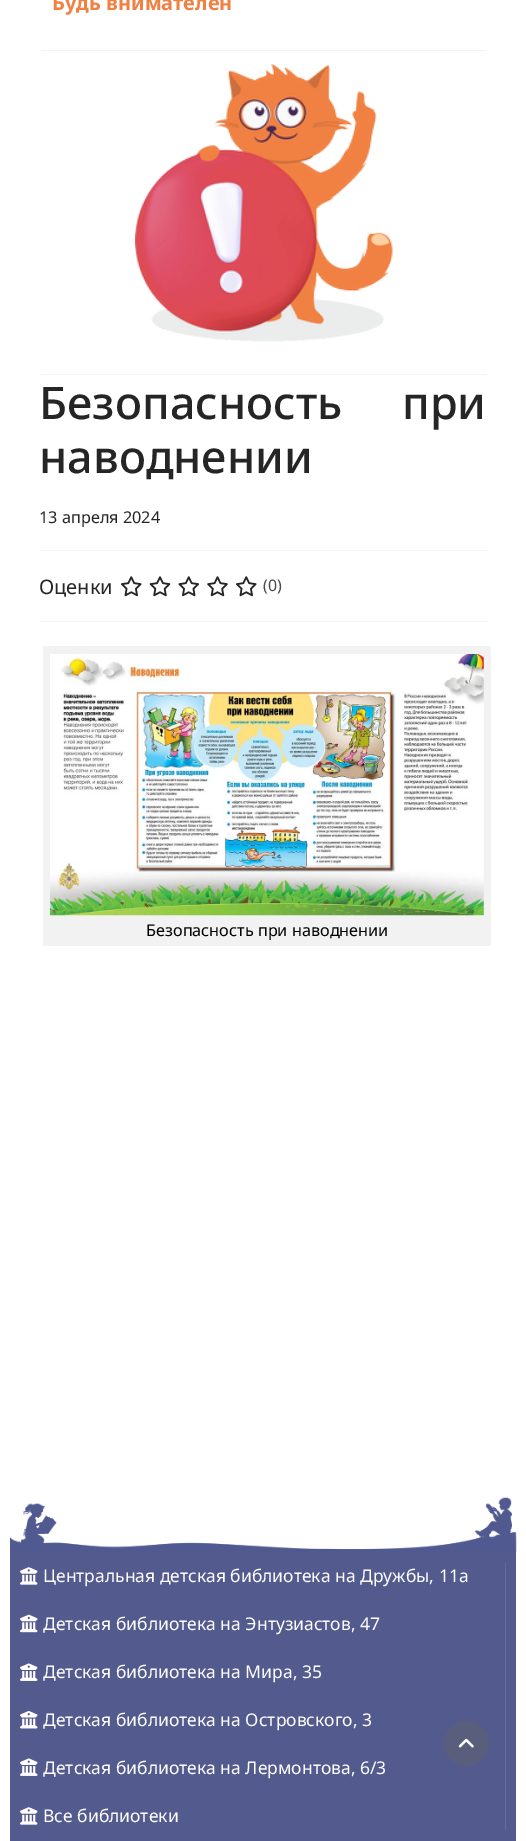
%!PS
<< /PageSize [526 1841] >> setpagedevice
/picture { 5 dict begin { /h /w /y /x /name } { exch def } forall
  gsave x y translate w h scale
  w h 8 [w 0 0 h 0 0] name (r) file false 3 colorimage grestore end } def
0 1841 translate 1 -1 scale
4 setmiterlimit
1 setgray
0 0 526 1841 rectfill
0.953 setgray
41 50 445 1 rectfill
/NotoSans-Bold [20 0 0 -20 0 0] selectfont
0.941 0.506 0.263 setrgbcolor
52 10 moveto (Будь внимателен) show
0.953 setgray
41 374 445 1 rectfill
(img1.rgb) 135 64 258 278 picture
/NotoSans-Medium [45 0 0 -45 0 0] selectfont
0.145 setgray
39 419 moveto 48 0 32 (Безопасность при) widthshow
39 473 moveto (наводнении) show
/NotoSans-Regular [16.25 0 0 -16.25 0 0] selectfont
39 523 moveto (13 апреля 2024) show
0.961 setgray
39 550 449 1 rectfill
39 621 449 1 rectfill
/NotoSans-Regular [20 0 0 -20 0 0] selectfont
0.145 setgray
39 594 moveto (Оценки) show
(img2.rgb) 121 576 21 21 picture
(img3.rgb) 149 576 22 21 picture
(img4.rgb) 178 576 21 21 picture
(img5.rgb) 207 576 21 21 picture
(img2.rgb) 236 576 21 21 picture
/NotoSans-Regular [16 0 0 -16 0 0] selectfont
0.298 0.294 0.294 setrgbcolor
263 591 moveto (\(0\)) show
0.949 setgray
43 646 448 300 rectfill
(img6.rgb) 50 654 434 262 picture
/NotoSans-Regular [16.25 0 0 -16.25 0 0] selectfont
0 setgray
146 936 moveto (Безопасность при наводнении) show
0.325 0.353 0.557 setrgbcolor
10 1550 506 291 rectfill
(img7.rgb) 10 1497 507 55 picture
0.392 0.42 0.6 setrgbcolor
505 1563 1 267 rectfill
(img8.rgb) 20 1567 18 18 picture
/NotoSans-Regular [17.5 0 0 -17.5 0 0] selectfont
1 setgray
43 1582 moveto (Центральная детская библиотека на Дружбы, 11а) show
(img9.rgb) 20 1614 18 19 picture
43 1630 moveto (Детская библиотека на Энтузиастов, 47) show
(img10.rgb) 20 1663 18 18 picture
43 1678 moveto (Детская библиотека на Мира, 35) show
(img11.rgb) 20 1711 18 18 picture
43 1726 moveto (Детская библиотека на Островского, 3) show
(img10.rgb) 20 1758 18 18 picture
43 1774 moveto (Детская библиотека на Лермонтова, 6/3) show
(img8.rgb) 20 1807 18 18 picture
43 1822 moveto (Все библиотеки) show
0.353 0.369 0.49 setrgbcolor
newpath 466.5 1743.5 22.5 0 360 arc closepath fill
(img12.rgb) 458 1738 16 10 picture
showpage
